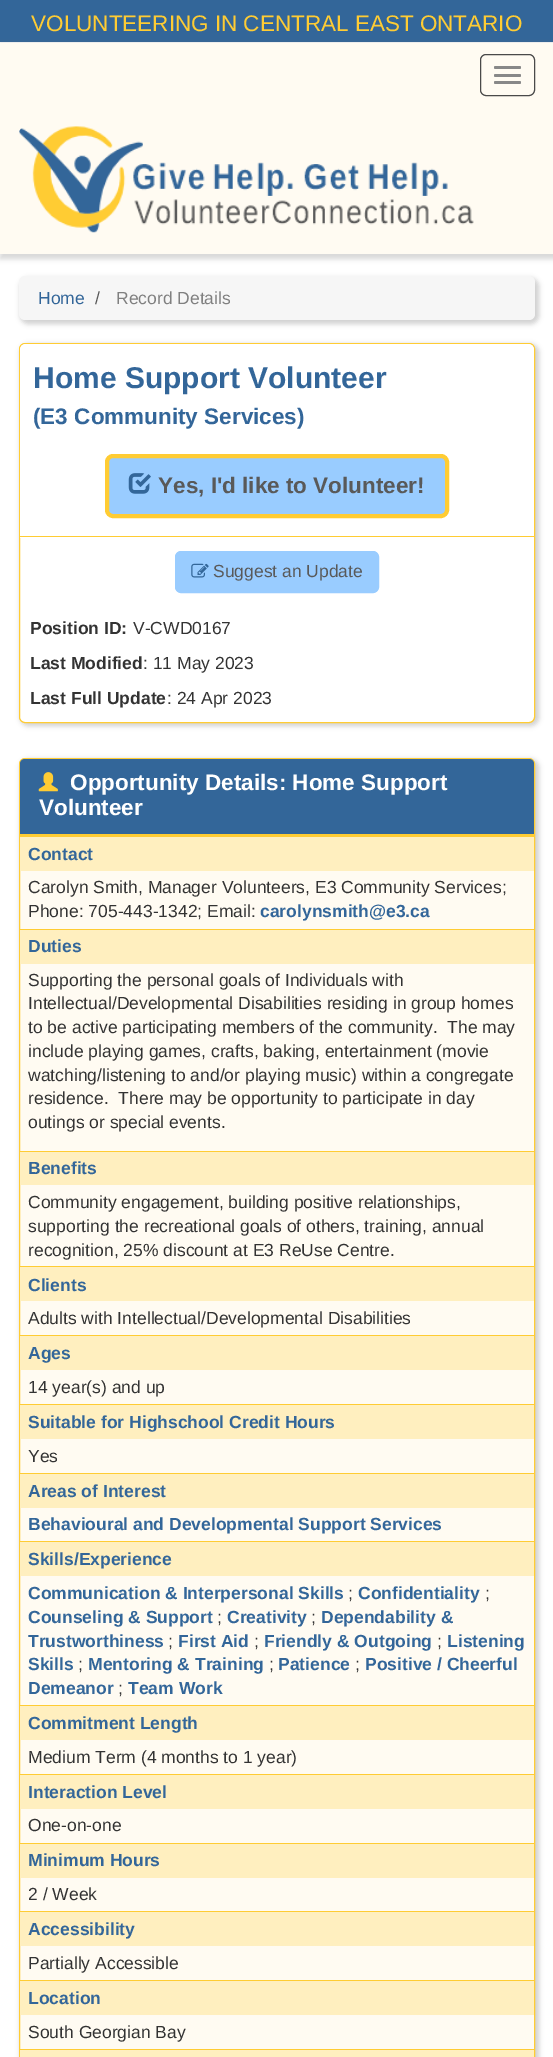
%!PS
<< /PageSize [553 2057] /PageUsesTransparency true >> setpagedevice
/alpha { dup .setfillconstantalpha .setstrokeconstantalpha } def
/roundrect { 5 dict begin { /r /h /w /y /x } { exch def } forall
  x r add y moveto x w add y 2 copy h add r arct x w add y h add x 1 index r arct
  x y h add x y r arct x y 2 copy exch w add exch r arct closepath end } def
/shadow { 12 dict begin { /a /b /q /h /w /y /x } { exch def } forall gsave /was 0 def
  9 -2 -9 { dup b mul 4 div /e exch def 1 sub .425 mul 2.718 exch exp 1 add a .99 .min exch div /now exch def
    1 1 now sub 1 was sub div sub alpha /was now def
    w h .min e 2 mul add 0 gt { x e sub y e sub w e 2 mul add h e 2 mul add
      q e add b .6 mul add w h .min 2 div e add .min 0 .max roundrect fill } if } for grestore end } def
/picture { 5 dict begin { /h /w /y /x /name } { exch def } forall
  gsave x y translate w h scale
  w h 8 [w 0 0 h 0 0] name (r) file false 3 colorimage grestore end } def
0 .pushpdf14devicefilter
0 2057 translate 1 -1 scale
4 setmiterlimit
1 setgray
0 0 553 2057 rectfill
0.2 0.4 0.6 setrgbcolor
0 0 553 42 rectfill
/LiberationSans-Regular [22.5 0 0 -22.5 0 0] selectfont
1 0.8 0.2 setrgbcolor
31 31 moveto (VOLUNTEERING IN CENTRAL EAST ONTARIO) show
0.4 setgray
0 43 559 216 0 2.5 0.25 shadow
1 0.984 0.949 setrgbcolor
0 43 553 211 rectfill
0.29 setgray
480.5 54.5 54 41 5.5 roundrect stroke
0.533 setgray
494 66 27 3 1.5 roundrect fill
494 74 27 3 1.5 roundrect fill
494 81 27 3 1.5 roundrect fill
(img1.rgb) 19 126 455 107 picture
0.4 setgray
20 278 519 46 8 2.5 0.3 shadow
0.965 setgray
19 276 516 44 6 roundrect fill
/LiberationSans-Regular [17.5 0 0 -17.5 0 0] selectfont
0.2 0.4 0.6 setrgbcolor
38 304 moveto (Home) show
0.349 setgray
95 304 moveto (/) show
0.502 setgray
116 304 moveto (Record Details) show
gsave
newpath 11 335 moveto 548 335 lineto 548 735 lineto 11 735 lineto closepath 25 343 moveto 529 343 lineto 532.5 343 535 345.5 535 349 curveto 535 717 lineto 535 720.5 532.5 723 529 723 curveto 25 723 lineto 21.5 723 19 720.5 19 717 curveto 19 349 lineto 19 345.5 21.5 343 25 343 curveto closepath eoclip newpath
0.4 setgray
20 344 519 382 8 2.5 0.3 shadow
grestore
1 0.8 0.2 setrgbcolor
19.5 343.5 515 379 5.5 roundrect stroke
1 setgray
newpath 26 344 moveto 528 344 lineto 531.5 344 534 346.5 534 350 curveto 534 538 lineto 20 538 lineto 20 350 lineto 20 346.5 22.5 344 26 344 curveto closepath fill
1 0.8 0.2 setrgbcolor
20 536 514 1 rectfill
/LiberationSans-Bold [30 0 0 -30 0 0] selectfont
0.2 0.4 0.6 setrgbcolor
33 388 moveto (Home Support Volunteer) show
/LiberationSans-Bold [22.5 0 0 -22.5 0 0] selectfont
33 424 moveto (\(E3 Community Services\)) show
0.6 0.8 1 setrgbcolor
107 456 340 60 6 roundrect gsave fill grestore
1 0.8 0.2 setrgbcolor
4 setlinewidth
stroke
(img2.rgb) 128 473 23 21 picture
0.349 setgray
158 493 moveto (Yes, I'd like to Volunteer!) show
0.6 0.8 1 setrgbcolor
175.5 551.5 203 41 5.5 roundrect gsave fill grestore
1 setlinewidth
stroke
(img3.rgb) 191 563 18 15 picture
/LiberationSans-Regular [17.5 0 0 -17.5 0 0] selectfont
0.349 setgray
213 577 moveto (Suggest an Update) show
/LiberationSans-Bold [17.5 0 0 -17.5 0 0] selectfont
0.2 setgray
30 634 moveto (Position ID:) show
/LiberationSans-Regular [17.5 0 0 -17.5 0 0] selectfont
133 634 moveto (V-CWD0167) show
/LiberationSans-Bold [17.5 0 0 -17.5 0 0] selectfont
30 669 moveto (Last Modified) show
/LiberationSans-Regular [17.5 0 0 -17.5 0 0] selectfont
143 669 moveto (: 11 May 2023) show
/LiberationSans-Bold [17.5 0 0 -17.5 0 0] selectfont
30 704 moveto (Last Full Update) show
/LiberationSans-Regular [17.5 0 0 -17.5 0 0] selectfont
167 704 moveto (: 24 Apr 2023) show
0.4 setgray
20 759 519 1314 8 2.5 0.3 shadow
1 0.984 0.949 setrgbcolor
19.5 758.5 515 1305 5.5 roundrect gsave fill grestore
1 0.8 0.2 setrgbcolor
stroke
0.2 0.4 0.6 setrgbcolor
newpath 25 759 moveto 529 759 lineto 532 759 534 761 534 764 curveto 534 835 lineto 20 835 lineto 20 764 lineto 20 761 22 759 25 759 curveto closepath fill
1 0.8 0.2 setrgbcolor
20 834 514 3 rectfill
(img4.rgb) 38 772 20 20 picture
/LiberationSans-Bold [22.5 0 0 -22.5 0 0] selectfont
1 setgray
70 790 moveto (Opportunity Details: Home Support) show
39 815 moveto (Volunteer) show
1 0.937 0.749 setrgbcolor
20 837 514 34 rectfill
/LiberationSans-Bold [17.5 0 0 -17.5 0 0] selectfont
0.2 0.4 0.6 setrgbcolor
28 860 moveto (Contact) show
/LiberationSans-Regular [17.5 0 0 -17.5 0 0] selectfont
0.2 setgray
28 893 moveto (Carolyn Smith, Manager Volunteers, E3 Community Services;) show
28 917 moveto (Phone: 705-443-1342; Email:) show
/LiberationSans-Bold [17.5 0 0 -17.5 0 0] selectfont
0.2 0.4 0.6 setrgbcolor
260 917 moveto (carolynsmith@e3.ca) show
1 0.937 0.749 setrgbcolor
20 930 514 34 rectfill
1 0.8 0.2 setrgbcolor
20 929 514 1 rectfill
0.2 0.4 0.6 setrgbcolor
28 952 moveto (Duties) show
/LiberationSans-Regular [17.5 0 0 -17.5 0 0] selectfont
0.2 setgray
28 986 moveto (Supporting the personal goals of Individuals with) show
28 1009 moveto (Intellectual/Developmental Disabilities residing in group homes) show
28 1033 moveto (to be active participating members of the community.  The may) show
28 1057 moveto (include playing games, crafts, baking, entertainment \(movie) show
28 1081 moveto (watching/listening to and/or playing music\) within a congregate) show
28 1104 moveto (residence.  There may be opportunity to participate in day) show
28 1128 moveto (outings or special events.) show
1 0.937 0.749 setrgbcolor
20 1152 514 33 rectfill
1 0.8 0.2 setrgbcolor
20 1151 514 1 rectfill
/LiberationSans-Bold [17.5 0 0 -17.5 0 0] selectfont
0.2 0.4 0.6 setrgbcolor
28 1174 moveto (Benefits) show
/LiberationSans-Regular [17.5 0 0 -17.5 0 0] selectfont
0.2 setgray
28 1208 moveto (Community engagement, building positive relationships,) show
28 1232 moveto (supporting the recreational goals of others, training, annual) show
28 1256 moveto (recognition, 25% discount at E3 ReUse Centre.) show
1 0.937 0.749 setrgbcolor
20 1267 514 34 rectfill
1 0.8 0.2 setrgbcolor
20 1266 514 1 rectfill
/LiberationSans-Bold [17.5 0 0 -17.5 0 0] selectfont
0.2 0.4 0.6 setrgbcolor
28 1291 moveto (Clients) show
/LiberationSans-Regular [17.5 0 0 -17.5 0 0] selectfont
0.2 setgray
28 1324 moveto (Adults with Intellectual/Developmental Disabilities) show
1 0.937 0.749 setrgbcolor
20 1336 514 34 rectfill
1 0.8 0.2 setrgbcolor
20 1335 514 1 rectfill
/LiberationSans-Bold [17.5 0 0 -17.5 0 0] selectfont
0.2 0.4 0.6 setrgbcolor
28 1359 moveto (Ages) show
/LiberationSans-Regular [17.5 0 0 -17.5 0 0] selectfont
0.2 setgray
28 1393 moveto (14 year\(s\) and up) show
1 0.937 0.749 setrgbcolor
20 1405 514 34 rectfill
1 0.8 0.2 setrgbcolor
20 1404 514 1 rectfill
/LiberationSans-Bold [17.5 0 0 -17.5 0 0] selectfont
0.2 0.4 0.6 setrgbcolor
28 1428 moveto (Suitable for Highschool Credit Hours) show
/LiberationSans-Regular [17.5 0 0 -17.5 0 0] selectfont
0.2 setgray
28 1462 moveto (Yes) show
1 0.937 0.749 setrgbcolor
20 1474 514 34 rectfill
1 0.8 0.2 setrgbcolor
20 1473 514 1 rectfill
/LiberationSans-Bold [17.5 0 0 -17.5 0 0] selectfont
0.2 0.4 0.6 setrgbcolor
28 1497 moveto (Areas of Interest) show
28 1530 moveto (Behavioural and Developmental Support Services) show
1 0.937 0.749 setrgbcolor
20 1542 514 34 rectfill
1 0.8 0.2 setrgbcolor
20 1541 514 1 rectfill
0.2 0.4 0.6 setrgbcolor
28 1565 moveto (Skills/Experience) show
28 1599 moveto (Communication & Interpersonal Skills) show
/LiberationSans-Regular [17.5 0 0 -17.5 0 0] selectfont
0.2 setgray
348 1599 moveto (;) show
/LiberationSans-Bold [17.5 0 0 -17.5 0 0] selectfont
0.2 0.4 0.6 setrgbcolor
358 1599 moveto (Confidentiality) show
/LiberationSans-Regular [17.5 0 0 -17.5 0 0] selectfont
0.2 setgray
485 1599 moveto (;) show
/LiberationSans-Bold [17.5 0 0 -17.5 0 0] selectfont
0.2 0.4 0.6 setrgbcolor
28 1623 moveto (Counseling & Support) show
/LiberationSans-Regular [17.5 0 0 -17.5 0 0] selectfont
0.2 setgray
217 1623 moveto (;) show
/LiberationSans-Bold [17.5 0 0 -17.5 0 0] selectfont
0.2 0.4 0.6 setrgbcolor
227 1623 moveto (Creativity) show
/LiberationSans-Regular [17.5 0 0 -17.5 0 0] selectfont
0.2 setgray
311 1623 moveto (;) show
/LiberationSans-Bold [17.5 0 0 -17.5 0 0] selectfont
0.2 0.4 0.6 setrgbcolor
321 1623 moveto (Dependability &) show
28 1647 moveto (Trustworthiness) show
/LiberationSans-Regular [17.5 0 0 -17.5 0 0] selectfont
0.2 setgray
168 1647 moveto (;) show
/LiberationSans-Bold [17.5 0 0 -17.5 0 0] selectfont
0.2 0.4 0.6 setrgbcolor
178 1647 moveto (First Aid) show
/LiberationSans-Regular [17.5 0 0 -17.5 0 0] selectfont
0.2 setgray
254 1647 moveto (;) show
/LiberationSans-Bold [17.5 0 0 -17.5 0 0] selectfont
0.2 0.4 0.6 setrgbcolor
264 1647 moveto (Friendly & Outgoing) show
/LiberationSans-Regular [17.5 0 0 -17.5 0 0] selectfont
0.2 setgray
437 1647 moveto (;) show
/LiberationSans-Bold [17.5 0 0 -17.5 0 0] selectfont
0.2 0.4 0.6 setrgbcolor
447 1647 moveto (Listening) show
28 1670 moveto (Skills) show
/LiberationSans-Regular [17.5 0 0 -17.5 0 0] selectfont
0.2 setgray
78 1670 moveto (;) show
/LiberationSans-Bold [17.5 0 0 -17.5 0 0] selectfont
0.2 0.4 0.6 setrgbcolor
88 1670 moveto (Mentoring & Training) show
/LiberationSans-Regular [17.5 0 0 -17.5 0 0] selectfont
0.2 setgray
269 1670 moveto (;) show
/LiberationSans-Bold [17.5 0 0 -17.5 0 0] selectfont
0.2 0.4 0.6 setrgbcolor
278 1670 moveto (Patience) show
/LiberationSans-Regular [17.5 0 0 -17.5 0 0] selectfont
0.2 setgray
355 1670 moveto (;) show
/LiberationSans-Bold [17.5 0 0 -17.5 0 0] selectfont
0.2 0.4 0.6 setrgbcolor
365 1670 moveto (Positive / Cheerful) show
28 1694 moveto (Demeanor) show
/LiberationSans-Regular [17.5 0 0 -17.5 0 0] selectfont
0.2 setgray
118 1694 moveto (;) show
/LiberationSans-Bold [17.5 0 0 -17.5 0 0] selectfont
0.2 0.4 0.6 setrgbcolor
128 1694 moveto (Team Work) show
1 0.937 0.749 setrgbcolor
20 1706 514 34 rectfill
1 0.8 0.2 setrgbcolor
20 1705 514 1 rectfill
0.2 0.4 0.6 setrgbcolor
28 1729 moveto (Commitment Length) show
/LiberationSans-Regular [17.5 0 0 -17.5 0 0] selectfont
0.2 setgray
28 1763 moveto (Medium Term \(4 months to 1 year\)) show
1 0.937 0.749 setrgbcolor
20 1775 514 34 rectfill
1 0.8 0.2 setrgbcolor
20 1774 514 1 rectfill
/LiberationSans-Bold [17.5 0 0 -17.5 0 0] selectfont
0.2 0.4 0.6 setrgbcolor
28 1798 moveto (Interaction Level) show
/LiberationSans-Regular [17.5 0 0 -17.5 0 0] selectfont
0.2 setgray
28 1831 moveto (One-on-one) show
1 0.937 0.749 setrgbcolor
20 1844 514 34 rectfill
1 0.8 0.2 setrgbcolor
20 1843 514 1 rectfill
/LiberationSans-Bold [17.5 0 0 -17.5 0 0] selectfont
0.2 0.4 0.6 setrgbcolor
28 1866 moveto (Minimum Hours) show
/LiberationSans-Regular [17.5 0 0 -17.5 0 0] selectfont
0.2 setgray
28 1900 moveto (2 / Week) show
1 0.937 0.749 setrgbcolor
20 1912 514 34 rectfill
1 0.8 0.2 setrgbcolor
20 1911 514 1 rectfill
/LiberationSans-Bold [17.5 0 0 -17.5 0 0] selectfont
0.2 0.4 0.6 setrgbcolor
28 1935 moveto (Accessibility) show
/LiberationSans-Regular [17.5 0 0 -17.5 0 0] selectfont
0.2 setgray
28 1969 moveto (Partially Accessible) show
1 0.937 0.749 setrgbcolor
20 1981 514 34 rectfill
1 0.8 0.2 setrgbcolor
20 1980 514 1 rectfill
/LiberationSans-Bold [17.5 0 0 -17.5 0 0] selectfont
0.2 0.4 0.6 setrgbcolor
28 2004 moveto (Location) show
/LiberationSans-Regular [17.5 0 0 -17.5 0 0] selectfont
0.2 setgray
28 2038 moveto (South Georgian Bay) show
1 0.937 0.749 setrgbcolor
20 2050 514 7 rectfill
1 0.8 0.2 setrgbcolor
20 2049 514 1 rectfill
.poppdf14devicefilter showpage
